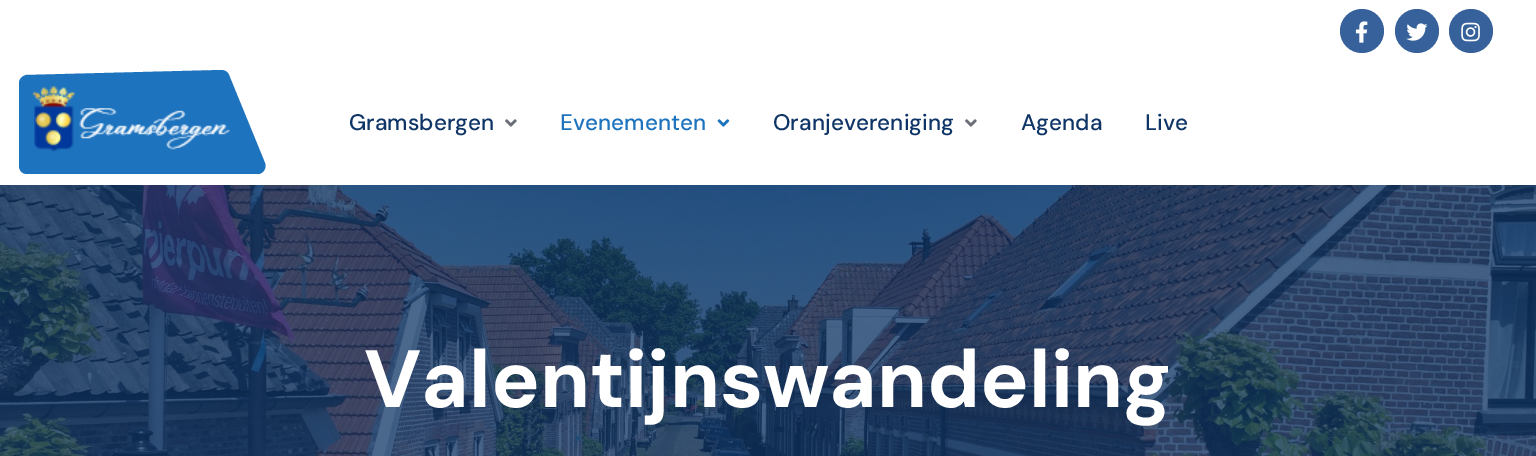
%!PS
<< /PageSize [1536 456] >> setpagedevice
/picture { 5 dict begin { /h /w /y /x /name } { exch def } forall
  gsave x y translate w h scale
  w h 8 [w 0 0 h 0 0] name (r) file false 3 colorimage grestore end } def
0 456 translate 1 -1 scale
4 setmiterlimit
1 setgray
0 0 1536 456 rectfill
0.212 0.38 0.604 setrgbcolor
newpath 1362 31 22 0 360 arc closepath fill
(img1.rgb) 1355 21 13 22 picture
newpath 1417 31 22 0 360 arc closepath fill
(img2.rgb) 1406 23 22 18 picture
newpath 1471 31 22 0 360 arc closepath fill
(img3.rgb) 1461 22 19 20 picture
0.118 0.451 0.745 setrgbcolor
newpath 19 83 moveto 19 79 22 76 26 75 curveto 221 70 lineto 225 70 228 72 229 75 curveto 265 163 lineto 267 168 263 174 258 174 curveto 27 174 lineto 22 174 19 170 19 166 curveto closepath fill
(img4.rgb) 32 86 198 66 picture
/DMSans-Medium [22.5 0 0 -22.5 0 0] selectfont
0.059 0.208 0.404 setrgbcolor
349 130 moveto (Gramsbergen) show
(img5.rgb) 505 119 12 8 picture
0.118 0.451 0.745 setrgbcolor
560 130 moveto (Evenementen) show
(img6.rgb) 717 119 13 8 picture
0.059 0.208 0.404 setrgbcolor
773 130 moveto (Oranjevereniging) show
(img5.rgb) 965 119 12 8 picture
1021 130 moveto (Agenda) show
1145 130 moveto (Live) show
(img7.rgb) 0 185 1536 271 picture
/DMSans-Bold [81.25 0 0 -81.25 0 0] selectfont
1 setgray
364 407 moveto (Valentijnswandeling) show
showpage
